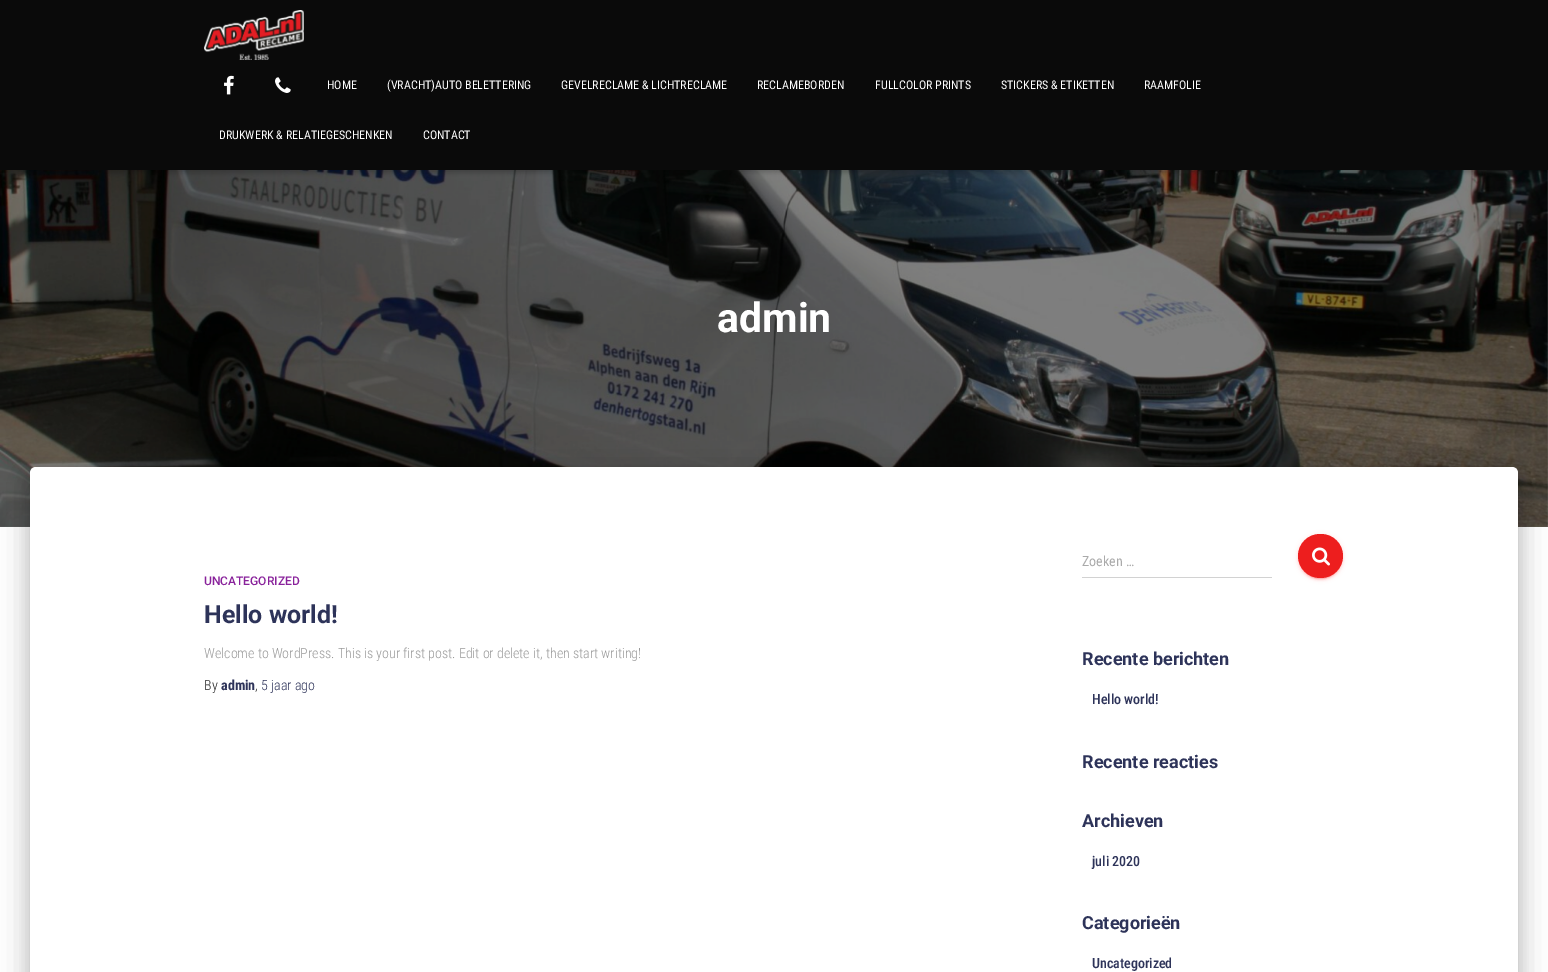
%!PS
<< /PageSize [1548 972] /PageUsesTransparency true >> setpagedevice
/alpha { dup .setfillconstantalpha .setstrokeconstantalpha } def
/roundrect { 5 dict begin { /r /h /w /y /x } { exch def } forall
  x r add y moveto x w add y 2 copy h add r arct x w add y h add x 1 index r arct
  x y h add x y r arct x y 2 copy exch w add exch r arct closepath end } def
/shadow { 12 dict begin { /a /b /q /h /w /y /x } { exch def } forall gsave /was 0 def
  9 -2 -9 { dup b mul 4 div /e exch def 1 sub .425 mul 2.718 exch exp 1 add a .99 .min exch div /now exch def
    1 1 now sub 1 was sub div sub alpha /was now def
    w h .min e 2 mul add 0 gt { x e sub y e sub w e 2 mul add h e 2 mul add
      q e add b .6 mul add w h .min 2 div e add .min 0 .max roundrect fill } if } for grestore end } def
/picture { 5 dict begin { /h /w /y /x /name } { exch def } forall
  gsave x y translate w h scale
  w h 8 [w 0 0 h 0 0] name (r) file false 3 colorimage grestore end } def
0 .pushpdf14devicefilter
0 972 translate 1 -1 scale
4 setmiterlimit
1 setgray
0 0 1548 972 rectfill
(img4.rgb) 0 170 1548 357 picture
0 setgray
2 6 1544 166 0 2.5 0.1 shadow
0 1 1548 170 0 5 0.12 shadow
6 7 1536 158 0 5 0.42 shadow
0.039 setgray
0 0 1548 170 rectfill
(img1.rgb) 204 10 100 50 picture
(img2.rgb) 224 75 10 20 picture
(img3.rgb) 275 77 16 16 picture
/RobotoCondensed-Regular [12 0 0 -12 0 0] selectfont
1 setgray
327 89 moveto (HOME) show
387 89 moveto (\(VRACHT\)AUTO BELETTERING) show
561 89 moveto (GEVELRECLAME & LICHTRECLAME) show
757 89 moveto (RECLAMEBORDEN) show
875 89 moveto (FULLCOLOR PRINTS) show
1001 89 moveto (STICKERS & ETIKETTEN) show
1144 89 moveto (RAAMFOLIE) show
219 139 moveto (DRUKWERK & RELATIEGESCHENKEN) show
423 139 moveto (CONTACT) show
/Roboto-Bold [41 0 0 -41 0 0] selectfont
717 332 moveto (admin) show
0 setgray
35 480 1478 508 1 5 0.2 shadow
25 468 1498 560 11 15 0.12 shadow
28 481 1492 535 8 12 0.14 shadow
1 setgray
newpath 36 467 moveto 1512 467 lineto 1515.5 467 1518 469.5 1518 473 curveto 1518 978 lineto 30 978 lineto 30 473 lineto 30 469.5 32.5 467 36 467 curveto closepath fill
/Roboto-Medium [12 0 0 -12 0 0] selectfont
0.537 0.133 0.608 setrgbcolor
204 585 moveto (UNCATEGORIZED) show
/Roboto-Bold [25 0 0 -25 0 0] selectfont
0.176 0.2 0.349 setrgbcolor
204 623 moveto (Hello world!) show
/RobotoCondensed-Light [14 0 0 -14 0 0] selectfont
0.6 setgray
204 658 moveto (Welcome to WordPress. This is your first post. Edit or delete it, then start writing!) show
0.129 setgray
204 690 moveto (By) show
/RobotoCondensed-Bold [14 0 0 -14 0 0] selectfont
0.176 0.2 0.349 setrgbcolor
221 690 moveto (admin) show
/RobotoCondensed-Light [14 0 0 -14 0 0] selectfont
0.129 setgray
255 690 moveto (,) show
0.176 0.2 0.349 setrgbcolor
261 690 moveto (5 jaar ago) show
/RobotoCondensed-Regular [14 0 0 -14 0 0] selectfont
0.667 setgray
1082 566 moveto (Zoeken …) show
0.824 setgray
1082 577 190 1 rectfill
0.929 0.118 0.118 setrgbcolor
1298 535 45 44 22 2.5 0.12 shadow
1300 539 41 40 20 0.5 0.2 shadow
1298 536 45 44 22 1 0.14 shadow
1298 534 45 44 22 roundrect fill
(img5.rgb) 1312 547 18 19 picture
/Roboto-Bold [18 0 0 -18 0 0] selectfont
0.176 0.2 0.349 setrgbcolor
1082 665 moveto (Recente berichten) show
/RobotoCondensed-Medium [14 0 0 -14 0 0] selectfont
1092 704 moveto (Hello world!) show
/Roboto-Bold [18 0 0 -18 0 0] selectfont
1082 768 moveto (Recente reacties) show
1082 827 moveto (Archieven) show
/RobotoCondensed-Medium [14 0 0 -14 0 0] selectfont
1092 866 moveto (juli 2020) show
/Roboto-Bold [18 0 0 -18 0 0] selectfont
1082 929 moveto (Categorieën) show
/RobotoCondensed-Medium [14 0 0 -14 0 0] selectfont
1092 968 moveto (Uncategorized) show
.poppdf14devicefilter showpage
